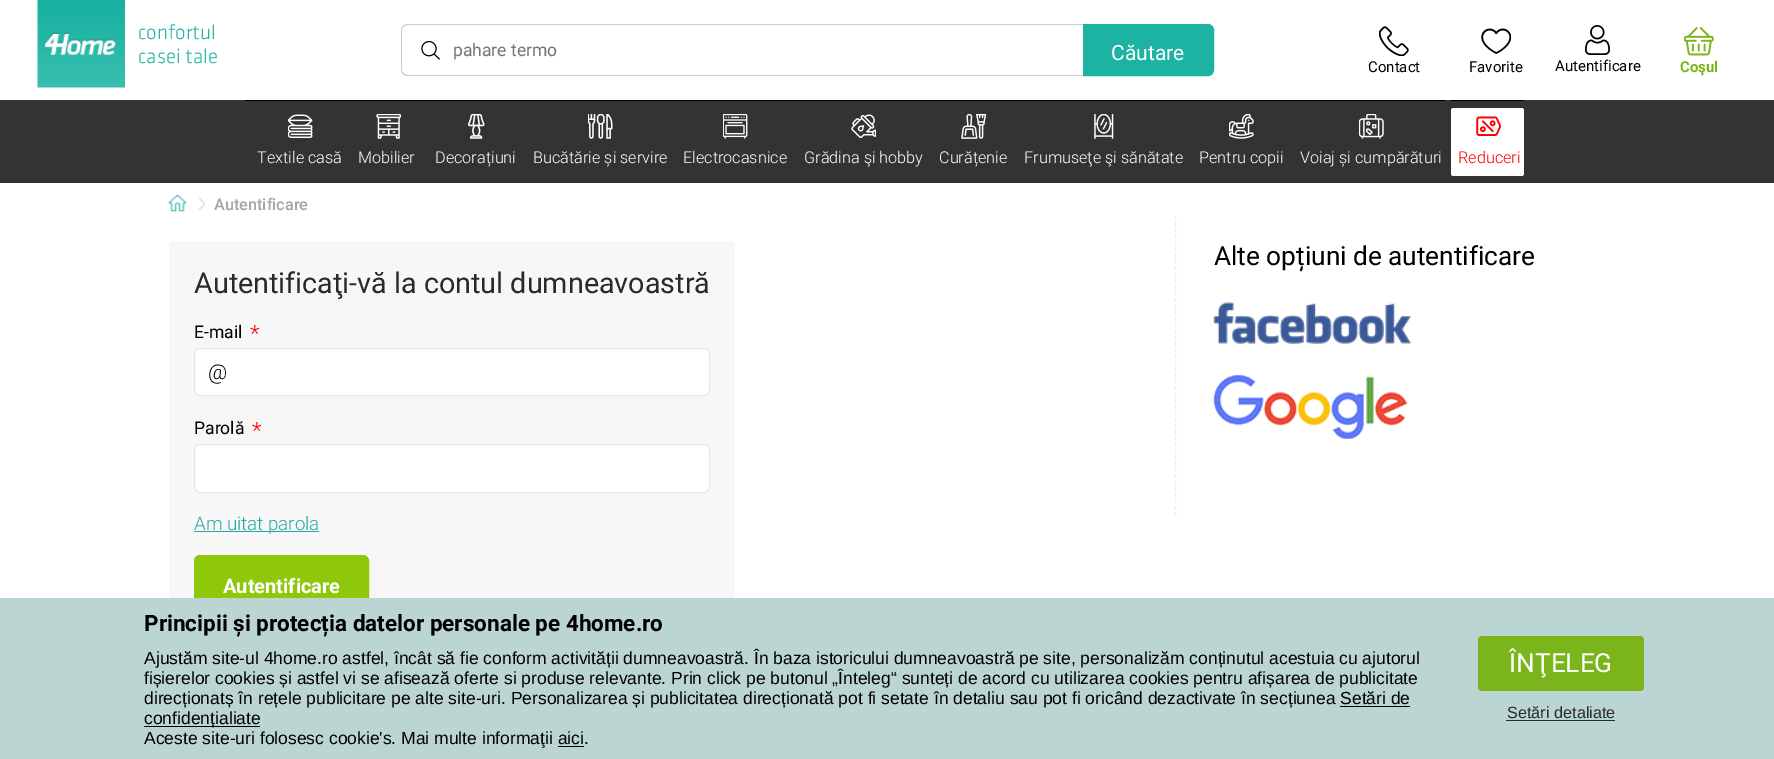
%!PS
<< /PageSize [1774 759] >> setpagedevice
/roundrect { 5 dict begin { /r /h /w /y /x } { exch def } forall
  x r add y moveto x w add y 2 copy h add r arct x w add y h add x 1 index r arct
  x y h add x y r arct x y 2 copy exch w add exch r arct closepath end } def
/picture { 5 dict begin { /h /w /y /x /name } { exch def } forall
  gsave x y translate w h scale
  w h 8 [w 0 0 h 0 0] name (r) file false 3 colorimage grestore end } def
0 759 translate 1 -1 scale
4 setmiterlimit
1 setgray
0 0 1774 759 rectfill
(img1.rgb) 37 0 88 88 picture
/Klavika-Light [21 0 0 -21 0 0] selectfont
0.149 0.702 0.639 setrgbcolor
138 39 moveto (confortul) show
138 63 moveto (casei tale) show
(img2.rgb) 421 40 19 20 picture
0.8 setgray
newpath 408 24 moveto 1208 24 lineto 1208 76 lineto 408 76 lineto 404 76 401 73 401 70 curveto 401 30 lineto 401 27 404 24 408 24 curveto closepath 408 25 moveto 1208 25 lineto 1208 75 lineto 408 75 lineto 405 75 402 73 402 70 curveto 402 30 lineto 402 27 405 25 408 25 curveto closepath eofill
/Roboto-Regular [17.5 0 0 -17.5 0 0] selectfont
0.459 setgray
453 56 moveto (pahare termo) show
0.11 0.702 0.635 setrgbcolor
newpath 1083.5 24.5 moveto 1208 24.5 lineto 1211 24.5 1213.5 27 1213.5 30 curveto 1213.5 70 lineto 1213.5 73 1211 75.5 1208 75.5 curveto 1083.5 75.5 lineto closepath gsave fill grestore
stroke
/Roboto-Regular [21 0 0 -21 0 0] selectfont
1 setgray
1111 60 moveto (Căutare) show
(img3.rgb) 1379 26 30 30 picture
/Roboto-Regular [15 0 0 -15 0 0] selectfont
0 setgray
1368 72 moveto (Contact) show
(img4.rgb) 1481 28 30 26 picture
1469 72 moveto (Favorite) show
(img5.rgb) 1584 25 26 30 picture
1555 71 moveto (Autentificare) show
(img6.rgb) 1684 27 30 29 picture
/Roboto-Bold [15 0 0 -15 0 0] selectfont
0.478 0.71 0.11 setrgbcolor
1680 72 moveto (Coşul) show
0.2 setgray
0 100 1774 83 rectfill
0 setgray
245 100 1200 1 rectfill
(img7.rgb) 288 114 25 24 picture
/Roboto-Light [16.25 0 0 -16.25 0 0] selectfont
1 setgray
257 163 moveto (Textile casă) show
(img8.rgb) 376 114 25 25 picture
358 163 moveto (Mobilier) show
(img9.rgb) 467 114 18 25 picture
435 163 moveto (Decorațiuni) show
(img10.rgb) 588 114 25 25 picture
533 163 moveto (Bucătărie și servire) show
(img11.rgb) 723 114 25 25 picture
683 163 moveto (Electrocasnice) show
(img12.rgb) 851 114 25 24 picture
804 163 moveto (Grădina şi hobby) show
(img13.rgb) 961 114 25 25 picture
939 163 moveto (Curățenie) show
(img14.rgb) 1094 114 20 25 picture
1024 163 moveto (Frumuseţe şi sănătate) show
(img15.rgb) 1229 114 25 25 picture
1199 163 moveto (Pentru copii) show
(img16.rgb) 1359 114 25 25 picture
1300 163 moveto (Voiaj și cumpărături) show
0 setgray
1451 100 73 1 rectfill
1 setgray
1451 108 73 68 2.5 roundrect fill
(img17.rgb) 1476 116 25 20 picture
1 0 0 setrgbcolor
1458 163 moveto (Reduceri) show
(img18.rgb) 168 195 19 17 picture
(img19.rgb) 199 198 6 12 picture
/Roboto-Medium [16.25 0 0 -16.25 0 0] selectfont
0.647 setgray
214 210 moveto (Autentificare) show
0.933 setgray
1.2 setlinewidth
[3.75 2.55] 0 setdash
newpath 1175.5 216 moveto 1175.5 516 lineto stroke
/Roboto-Regular [26.25 0 0 -26.25 0 0] selectfont
0 setgray
1214 265 moveto (Alte opțiuni de autentificare) show
(img20.rgb) 1213 302 199 42 picture
(img21.rgb) 1213 375 195 64 picture
0.969 setgray
169 241 566 402 6 roundrect fill
/Roboto-Regular [28.75 0 0 -28.75 0 0] selectfont
0.165 setgray
194 293 moveto (Autentificaţi-vă la contul dumneavoastră) show
/Roboto-Regular [17.5 0 0 -17.5 0 0] selectfont
0 setgray
194 338 moveto (E-mail) show
/Roboto-Light [22.5 0 0 -22.5 0 0] selectfont
1 0 0 setrgbcolor
250 341 moveto (*) show
1 setgray
194.5 348.5 515 47 5.5 roundrect gsave fill grestore
0.906 setgray
1 setlinewidth
[] 0 setdash
stroke
/Roboto-Light [21 0 0 -21 0 0] selectfont
0 setgray
208 379 moveto (@) show
/Roboto-Regular [17.5 0 0 -17.5 0 0] selectfont
194 434 moveto (Parolă) show
/Roboto-Light [22.5 0 0 -22.5 0 0] selectfont
1 0 0 setrgbcolor
252 438 moveto (*) show
1 setgray
194.5 444.5 515 48 5.5 roundrect gsave fill grestore
0.906 setgray
stroke
0.141 0.667 0.608 setrgbcolor
194 531 125 1 rectfill
/Roboto-Light [18.75 0 0 -18.75 0 0] selectfont
194 530 moveto (Am uitat parola) show
0.561 0.784 0.039 setrgbcolor
194.5 555.5 174 62 5.5 roundrect gsave fill grestore
stroke
/Roboto-Bold [20 0 0 -20 0 0] selectfont
1 setgray
223 593 moveto (Autentificare) show
0.733 0.835 0.824 setrgbcolor
0 598 1774 161 rectfill
/Roboto-Bold [22.5 0 0 -22.5 0 0] selectfont
0 setgray
144 631 moveto (Principii și protecția datelor personale pe 4home.ro) show
/LiberationSans-Regular [17.5 0 0 -17.5 0 0] selectfont
144 664 moveto (Ajustăm site-ul 4home.ro astfel, încât să fie conform activității dumneavoastră. În baza istoricului dumneavoastră pe site, personalizăm conținutul acestuia cu ajutorul) show
144 684 moveto (fișierelor cookies și astfel vi se afisează oferte si produse relevante. Prin click pe butonul „Înteleg“ sunteți de acord cu utilizarea cookies pentru afișarea de publicitate) show
144 704 moveto (direcționatș în rețele publicitare pe alte site-uri. Personalizarea și publicitatea direcționată pot fi setate în detaliu sau pot fi oricând dezactivate în secțiunea Setări de) show
144 726 116 1 rectfill
144 724 moveto (confidențialiate) show
1340 706 70 1 rectfill
144 744 moveto (Aceste site-uri folosesc cookie's. Mai multe informaţii aici.) show
558 746 26 1 rectfill
0.478 0.71 0.11 setrgbcolor
1478 636 166 55 4 roundrect fill
/Roboto-Regular [26.25 0 0 -26.25 0 0] selectfont
1 setgray
1509 672 moveto (ÎNŢELEG) show
/LiberationSans-Regular [16.25 0 0 -16.25 0 0] selectfont
0.165 setgray
1507 718 moveto (Setări detaliate) show
1506 720 109 1 rectfill
showpage
